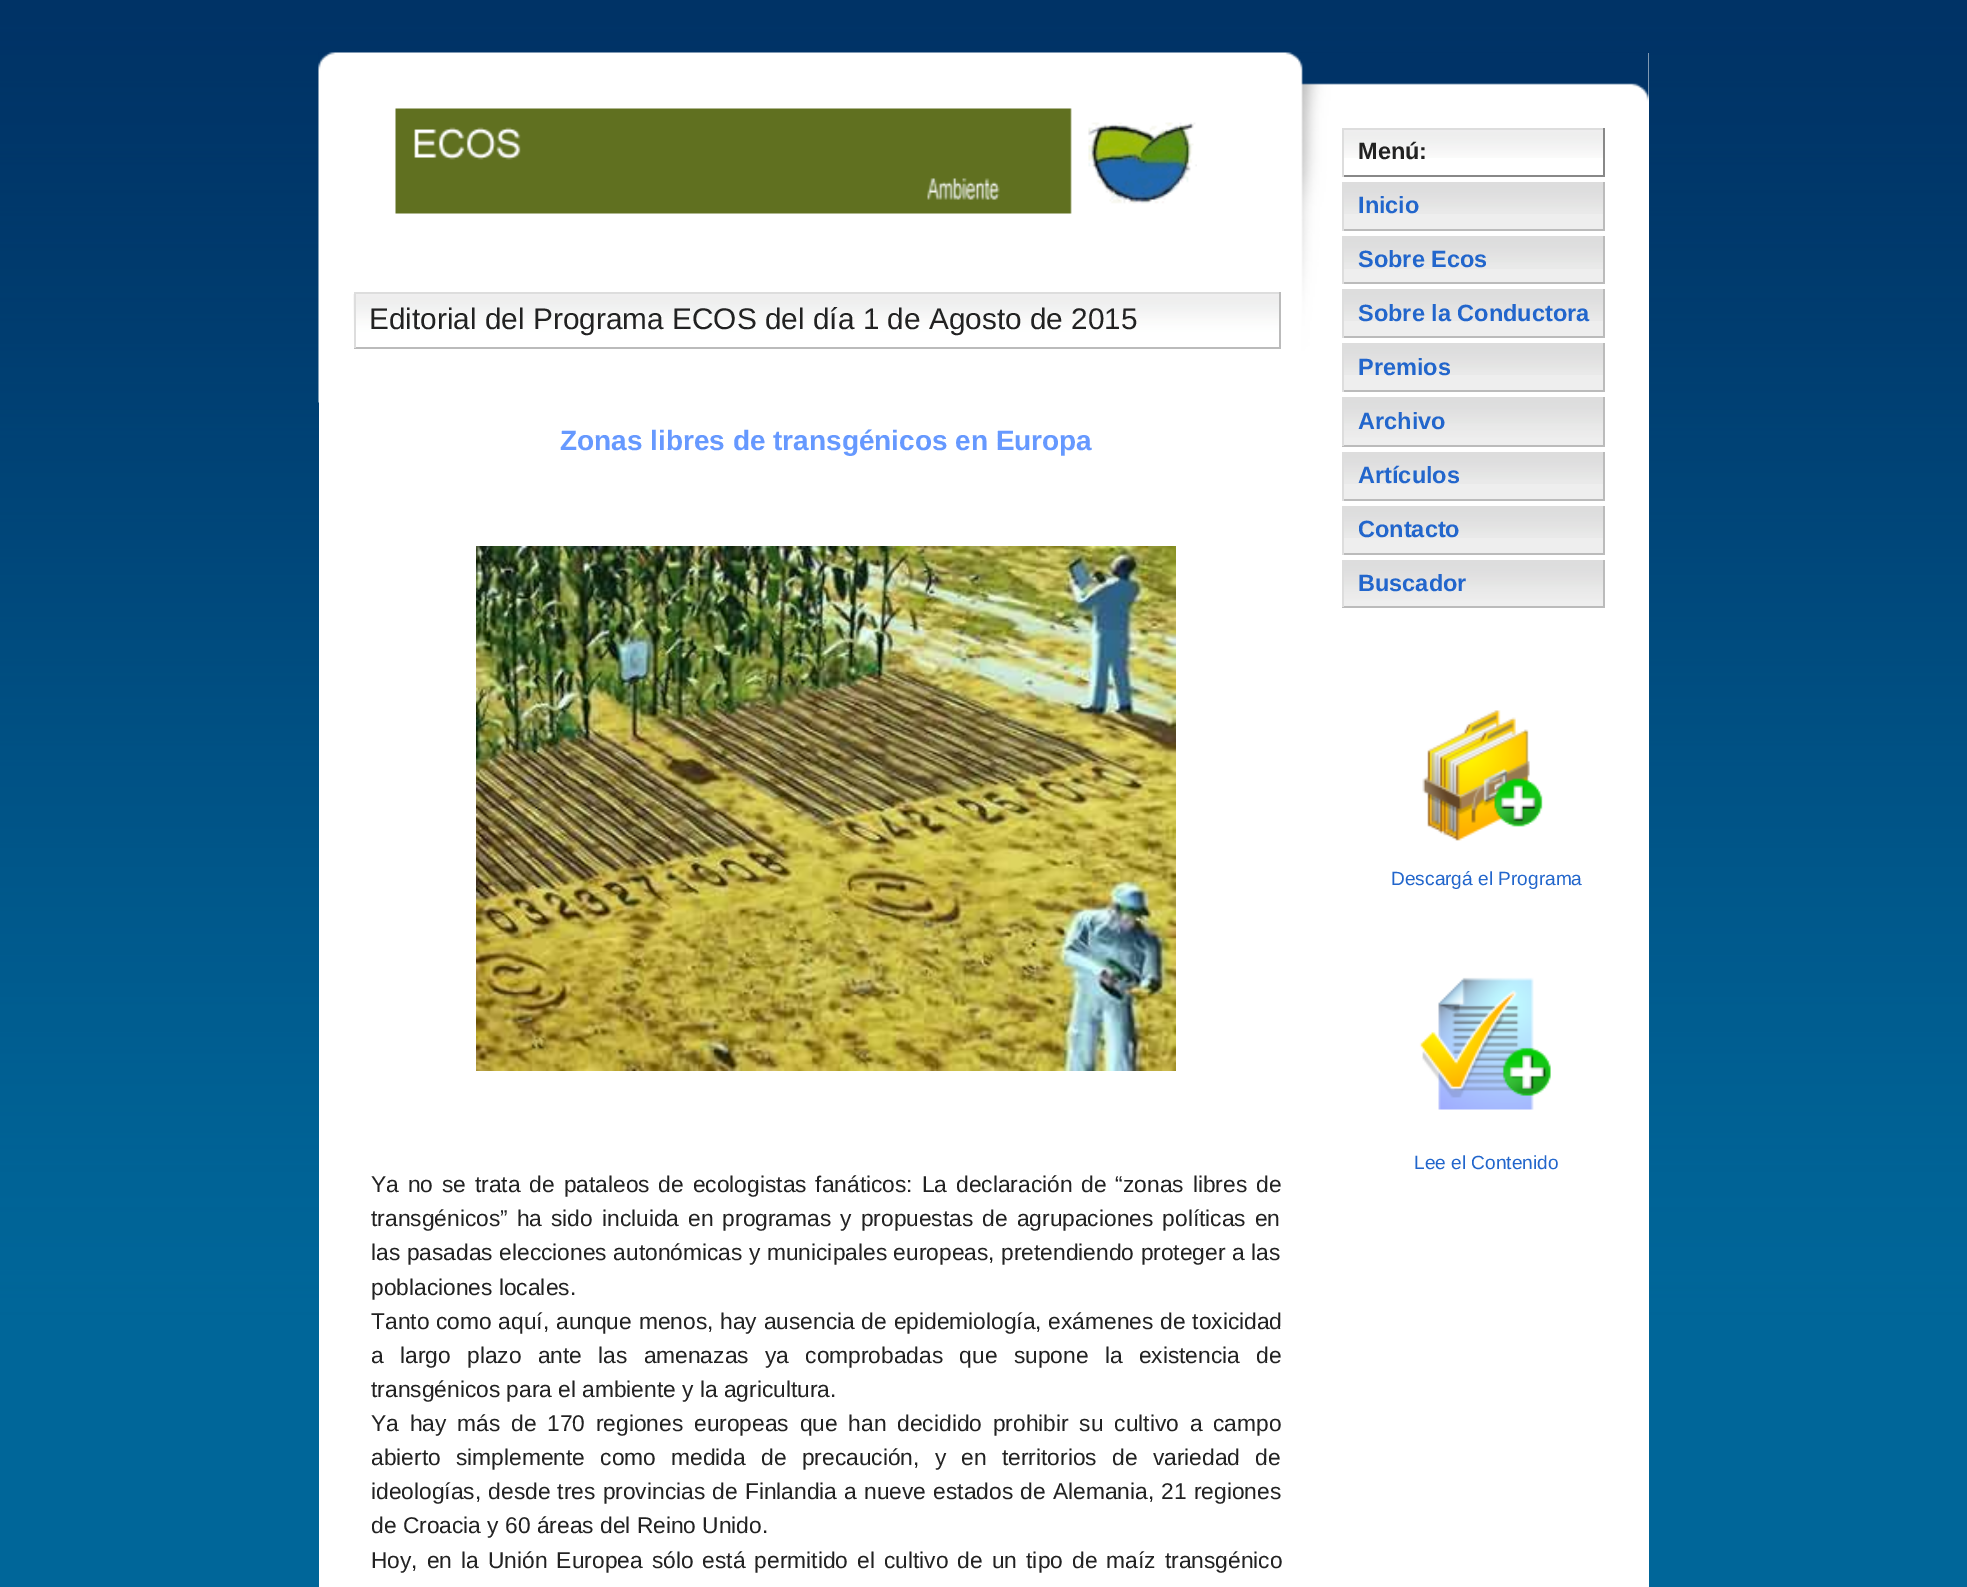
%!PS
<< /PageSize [1967 1587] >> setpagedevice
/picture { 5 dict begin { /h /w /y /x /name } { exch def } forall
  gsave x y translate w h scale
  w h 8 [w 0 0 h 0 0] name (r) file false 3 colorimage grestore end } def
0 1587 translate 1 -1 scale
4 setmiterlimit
1 setgray
0 0 1967 1587 rectfill
(img1.rgb) 0 0 1967 1587 picture
319 53 1330 1534 rectfill
(img2.rgb) 318 52 1331 351 picture
(img3.rgb) 395 108 802 106 picture
(img4.rgb) 353 294 926 54 picture
0.867 setgray
354 292 927 2 rectfill
0.733 setgray
1279 292 2 56 rectfill
354 347 927 2 rectfill
0.867 setgray
354 292 2 56 rectfill
/LiberationSans-Regular [29.8 0 0 -29.8 0 0] selectfont
0.133 setgray
369 329 moveto (Editorial del Programa ECOS del día 1 de Agosto de 2015) show
/LiberationSans-Bold [28 0 0 -28 0 0] selectfont
0.4 0.6 1 setrgbcolor
560 450 moveto (Zonas libres de transgénicos en Europa) show
(img5.rgb) 476 546 700 525 picture
/LiberationSans-Regular [22.75 0 0 -22.75 0 0] selectfont
0.133 setgray
371 1192 moveto 2.6 0 32 (Ya no se trata de pataleos de ecologistas fanáticos: La declaración de “zonas libres de) widthshow
371 1226 moveto 2.75 0 32 (transgénicos” ha sido incluida en programas y propuestas de agrupaciones políticas en) widthshow
371 1260 moveto 0.25 0 32 (las pasadas elecciones autonómicas y municipales europeas, pretendiendo proteger a las) widthshow
371 1295 moveto (poblaciones locales.) show
371 1329 moveto 0.5 0 32 (Tanto como aquí, aunque menos, hay ausencia de epidemiología, exámenes de toxicidad) widthshow
371 1363 moveto 10 0 32 (a largo plazo ante las amenazas ya comprobadas que supone la existencia de) widthshow
371 1397 moveto (transgénicos para el ambiente y la agricultura.) show
371 1431 moveto 4.5 0 32 (Ya hay más de 170 regiones europeas que han decidido prohibir su cultivo a campo) widthshow
371 1465 moveto 9 0 32 (abierto simplemente como medida de precaución, y en territorios de variedad de) widthshow
371 1499 moveto 0.9 0 32 (ideologías, desde tres provincias de Finlandia a nueve estados de Alemania, 21 regiones) widthshow
371 1533 moveto (de Croacia y 60 áreas del Reino Unido.) show
371 1568 moveto 2.75 0 32 (Hoy, en la Unión Europea sólo está permitido el cultivo de un tipo de maíz transgénico) widthshow
(img6.rgb) 1344 130 259 28 picture
0.867 setgray
1342 128 263 2 rectfill
0.533 setgray
1603 128 2 49 rectfill
1342 175 263 2 rectfill
0.867 setgray
1342 128 2 49 rectfill
/LiberationSans-Bold [23.5 0 0 -23.5 0 0] selectfont
0.133 setgray
1358 159 moveto (Menú:) show
0.933 setgray
1344 214 259 15 rectfill
(img7.rgb) 1344 184 259 30 picture
0.867 setgray
1342 182 263 2 rectfill
0.733 setgray
1603 182 2 49 rectfill
1342 229 263 2 rectfill
0.867 setgray
1342 182 2 49 rectfill
0.133 0.4 0.8 setrgbcolor
1358 213 moveto (Inicio) show
0.933 setgray
1344 269 259 13 rectfill
(img8.rgb) 1344 238 259 31 picture
0.867 setgray
1342 236 263 2 rectfill
0.733 setgray
1603 236 2 48 rectfill
1342 282 263 2 rectfill
0.867 setgray
1342 236 2 48 rectfill
0.133 0.4 0.8 setrgbcolor
1358 267 moveto (Sobre Ecos) show
0.933 setgray
1344 321 259 15 rectfill
(img9.rgb) 1344 291 259 30 picture
0.867 setgray
1342 289 263 2 rectfill
0.733 setgray
1603 289 2 49 rectfill
1342 336 263 2 rectfill
0.867 setgray
1342 289 2 49 rectfill
0.133 0.4 0.8 setrgbcolor
1358 321 moveto (Sobre la Conductora) show
0.933 setgray
1344 375 259 15 rectfill
(img7.rgb) 1344 345 259 30 picture
0.867 setgray
1342 343 263 2 rectfill
0.733 setgray
1603 343 2 49 rectfill
1342 390 263 2 rectfill
0.867 setgray
1342 343 2 49 rectfill
0.133 0.4 0.8 setrgbcolor
1358 375 moveto (Premios) show
(img10.rgb) 1344 399 259 46 picture
0.867 setgray
1342 397 263 2 rectfill
0.733 setgray
1603 397 2 49 rectfill
1342 445 263 2 rectfill
0.867 setgray
1342 397 2 49 rectfill
0.133 0.4 0.8 setrgbcolor
1358 429 moveto (Archivo) show
0.933 setgray
1344 484 259 15 rectfill
(img11.rgb) 1344 454 259 30 picture
0.867 setgray
1342 452 263 2 rectfill
0.733 setgray
1603 452 2 49 rectfill
1342 499 263 2 rectfill
0.867 setgray
1342 452 2 49 rectfill
0.133 0.4 0.8 setrgbcolor
1358 483 moveto (Artículos) show
0.933 setgray
1344 538 259 15 rectfill
(img9.rgb) 1344 508 259 30 picture
0.867 setgray
1342 506 263 2 rectfill
0.733 setgray
1603 506 2 49 rectfill
1342 553 263 2 rectfill
0.867 setgray
1342 506 2 49 rectfill
0.133 0.4 0.8 setrgbcolor
1358 537 moveto (Contacto) show
(img12.rgb) 1344 562 259 44 picture
0.867 setgray
1342 560 263 2 rectfill
0.733 setgray
1603 560 2 47 rectfill
1342 606 263 2 rectfill
0.867 setgray
1342 560 2 47 rectfill
0.133 0.4 0.8 setrgbcolor
1358 591 moveto (Buscador) show
(img13.rgb) 1422 710 121 131 picture
/LiberationSans-Regular [19.1 0 0 -19.1 0 0] selectfont
1391 885 moveto (Descargá el Programa) show
(img14.rgb) 1419 977 132 133 picture
1414 1169 moveto (Lee el Contenido) show
showpage
